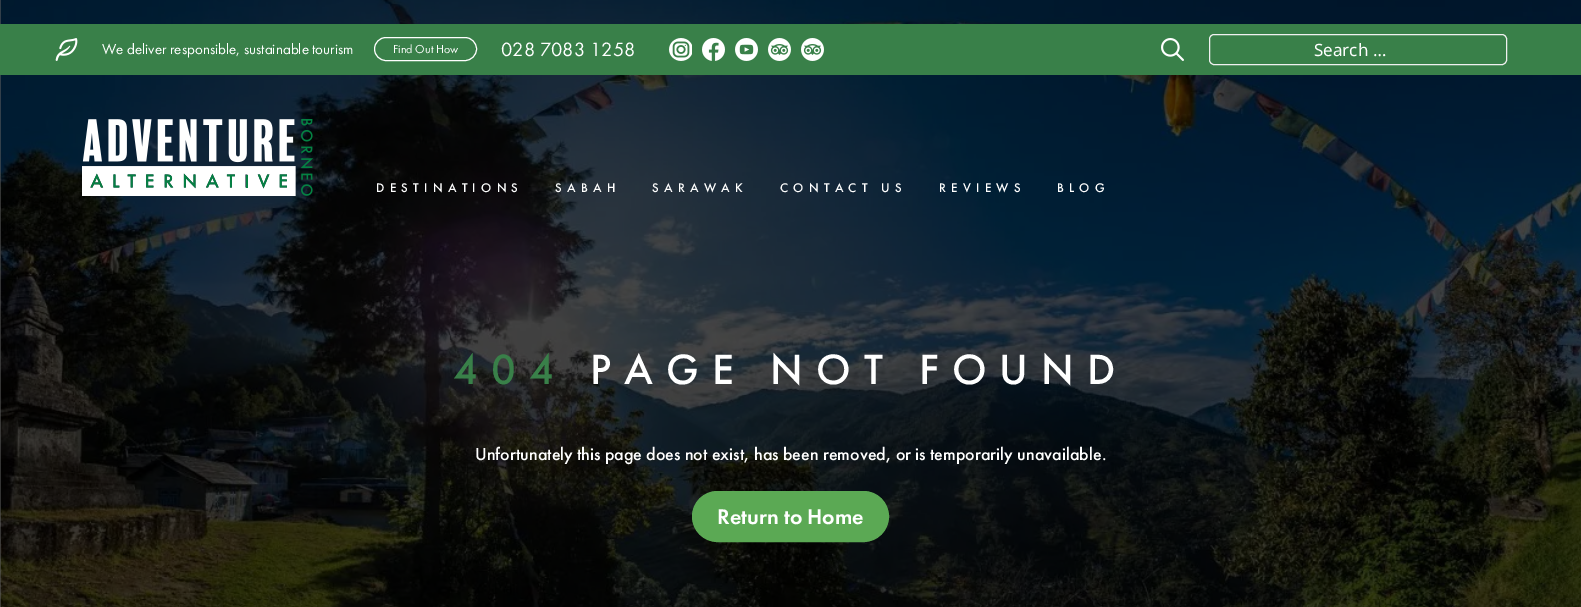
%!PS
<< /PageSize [1581 607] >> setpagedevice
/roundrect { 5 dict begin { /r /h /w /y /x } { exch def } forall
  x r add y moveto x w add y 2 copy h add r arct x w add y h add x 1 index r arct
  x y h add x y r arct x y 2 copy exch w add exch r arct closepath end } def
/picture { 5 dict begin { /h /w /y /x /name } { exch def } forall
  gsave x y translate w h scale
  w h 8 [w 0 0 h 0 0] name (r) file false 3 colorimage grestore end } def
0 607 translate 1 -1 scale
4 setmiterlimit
0.227 setgray
0 0 1581 607 rectfill
0 setgray
1 0 1580 607 rectfill
(img8.rgb) 0 0 1581 607 picture
0.224 0.502 0.286 setrgbcolor
0 24 1581 51 rectfill
(img1.rgb) 55 38 23 23 picture
/FuturaPT-Regular [15 0 0 -15 0 0] selectfont
1 setgray
102 54 moveto (We deliver responsible, sustainable tourism) show
374.5 37.5 102 23 11.5 roundrect stroke
/FuturaPT-Regular [12 0 0 -12 0 0] selectfont
393 53 moveto (Find Out How) show
/FuturaPT-Regular [20 0 0 -20 0 0] selectfont
501 56 moveto (028 7083 1258) show
(img2.rgb) 669 38 23 23 picture
(img3.rgb) 702 38 23 23 picture
(img4.rgb) 735 38 23 23 picture
(img5.rgb) 768 38 23 23 picture
(img5.rgb) 801 38 23 23 picture
(img6.rgb) 1161 38 23 23 picture
0.941 setgray
1209.5 34.5 297 30 4.5 roundrect stroke
/NotoSans-Regular [17 0 0 -17 0 0] selectfont
1 setgray
1314 56 moveto (Search …) show
(img7.rgb) 82 119 231 77 picture
/FuturaPT-Medium [13 0 0 -13 0 0] selectfont
376 192 moveto 5.25 0 (DESTINATIONS) ashow
555 192 moveto 5.25 0 (SABAH) ashow
652 192 moveto 5.25 0 (SARAWAK) ashow
780 192 moveto 5.25 0 (CONTACT US) ashow
939 192 moveto 5.25 0 (REVIEWS) ashow
1057 192 moveto 5.25 0 (BLOG) ashow
/FuturaPT-Medium [44 0 0 -44 0 0] selectfont
0.224 0.502 0.286 setrgbcolor
453 384 moveto 13 0 (404) ashow
1 setgray
590 384 moveto 13 0 (PAGE NOT FOUND) ashow
/FuturaPT-Medium [18 0 0 -18 0 0] selectfont
475 460 moveto (Unfortunately this page does not exist, has been removed, or is temporarily unavailable.) show
0.357 0.663 0.329 setrgbcolor
692.5 491.5 196 50 25 roundrect gsave fill grestore
stroke
/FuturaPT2-Medium [22 0 0 -22 0 0] selectfont
1 setgray
717 524 moveto (Return to Home) show
showpage
